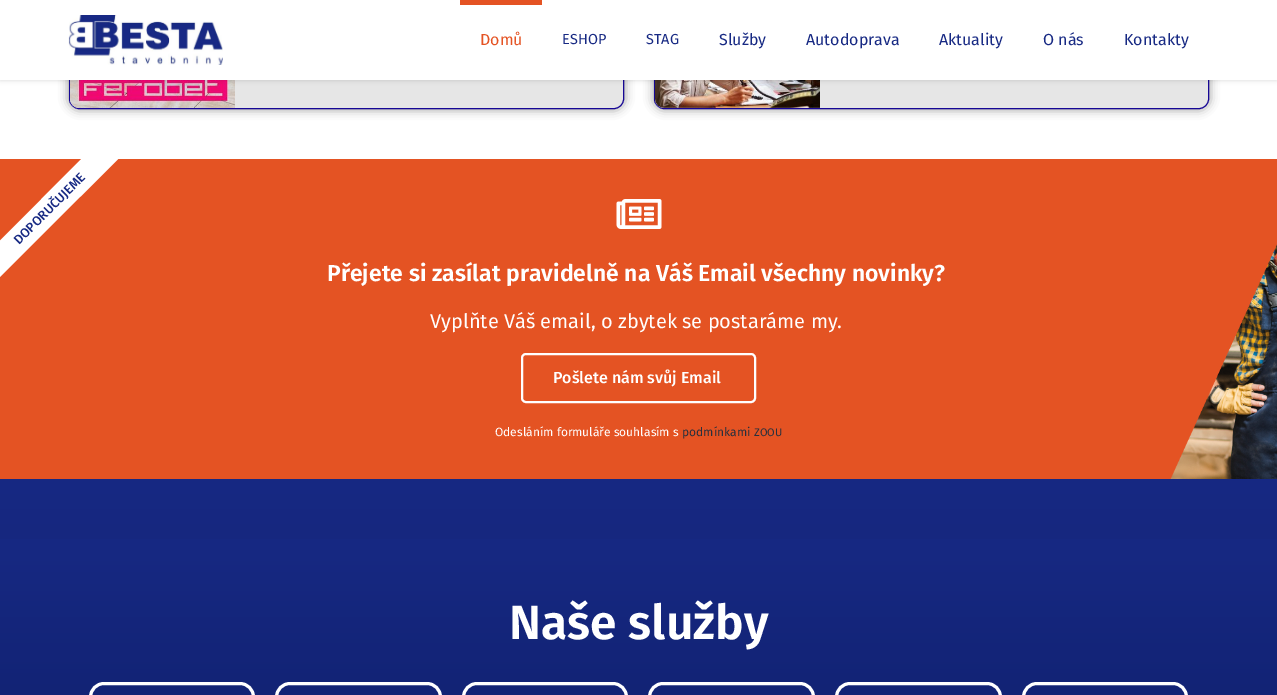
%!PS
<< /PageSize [1277 695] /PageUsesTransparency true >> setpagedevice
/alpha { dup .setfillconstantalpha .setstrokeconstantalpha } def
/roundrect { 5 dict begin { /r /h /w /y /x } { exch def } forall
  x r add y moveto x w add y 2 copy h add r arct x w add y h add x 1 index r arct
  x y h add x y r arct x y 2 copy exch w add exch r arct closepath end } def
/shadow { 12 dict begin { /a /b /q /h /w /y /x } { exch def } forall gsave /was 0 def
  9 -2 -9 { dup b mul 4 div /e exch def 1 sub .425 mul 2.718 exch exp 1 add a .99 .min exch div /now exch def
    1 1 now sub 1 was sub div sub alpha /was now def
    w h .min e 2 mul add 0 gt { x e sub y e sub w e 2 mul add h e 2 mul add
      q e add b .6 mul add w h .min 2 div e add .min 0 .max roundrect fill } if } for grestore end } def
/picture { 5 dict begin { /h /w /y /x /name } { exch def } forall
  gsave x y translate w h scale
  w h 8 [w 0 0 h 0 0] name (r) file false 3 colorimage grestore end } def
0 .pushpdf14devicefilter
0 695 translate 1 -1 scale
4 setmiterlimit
1 setgray
0 0 1277 695 rectfill
0.016 setgray
69 -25 555 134 10 5 0.48 shadow
0.902 setgray
69.5 -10.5 554 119 9.5 roundrect gsave fill grestore
0.09 0.027 0.588 setrgbcolor
stroke
(img2.rgb) 70 80 165 28 picture
0.016 setgray
654 -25 555 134 10 5 0.48 shadow
0.902 setgray
654.5 -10.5 554 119 9.5 roundrect gsave fill grestore
0.09 0.027 0.588 setrgbcolor
stroke
(img3.rgb) 655 80 165 28 picture
0 setgray
0 0 1277 80 0 2.5 0.15 shadow
1 setgray
0 0 1277 80 rectfill
(img1.rgb) 68 15 155 50 picture
0.894 0.325 0.137 setrgbcolor
460 0 82 5 rectfill
/FiraSans-Regular [16 0 0 -16 0 0] selectfont
480 45 moveto (Domů) show
/FiraSans-Regular [14.5 0 0 -14.5 0 0] selectfont
0.09 0.161 0.514 setrgbcolor
562 44 moveto (ESHOP) show
646 44 moveto (STAG) show
/FiraSans-Regular [16 0 0 -16 0 0] selectfont
719 45 moveto (Služby) show
806 45 moveto (Autodoprava) show
939 45 moveto (Aktuality) show
1043 45 moveto (O nás) show
1124 45 moveto (Kontakty) show
0.894 0.325 0.137 setrgbcolor
0 159 1277 320 rectfill
(img4.rgb) 1170 244 107 235 picture
gsave
0 159 150 150 rectclip
1 setgray
newpath -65 306 moveto 147 93 lineto 165 112 lineto -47 324 lineto closepath fill
grestore
/FiraSans-Medium [13 0 0 -13 0 0] selectfont
0.09 0.161 0.514 setrgbcolor
gsave 19 245 translate -45 rotate 0 0 moveto (DOPORUČUJEME) show grestore
(img5.rgb) 616 199 46 30 picture
/FiraSans-SemiBold [23 0 0 -23 0 0] selectfont
1 setgray
327 281 moveto (Přejete si zasílat pravidelně na Váš Email všechny novinky?) show
/FiraSans-Regular [20 0 0 -20 0 0] selectfont
430 328 moveto (Vyplňte Váš email, o zbytek se postaráme my.) show
2 setlinewidth
522 354 233 48 4 roundrect stroke
/FiraSans-Medium [16 0 0 -16 0 0] selectfont
553 383 moveto (Pošlete nám svůj Email) show
/FiraSans-Regular [12 0 0 -12 0 0] selectfont
495 436 moveto (Odesláním formuláře souhlasím s) show
0.157 0.188 0.239 setrgbcolor
682 436 moveto (podmínkami) show
/FiraSans-Regular [11 0 0 -11 0 0] selectfont
754 436 moveto (ZOOU) show
gsave newpath 0 479 moveto 1277 479 lineto 1277 539 lineto 0 539 lineto closepath clip newpath
<< /ShadingType 2 /ColorSpace /DeviceRGB /Coords [639 479 639 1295] /Extend [true true] /Function << /FunctionType 2 /Domain [0 1] /C0 [0.09 0.161 0.514] /C1 [0.016 0.059 0.282] /N 1 >> >> shfill grestore
gsave newpath 0 539 moveto 1277 539 lineto 1277 695 lineto 0 695 lineto closepath clip newpath
<< /ShadingType 2 /ColorSpace /DeviceRGB /Coords [639 539 639 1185] /Extend [true true] /Function << /FunctionType 2 /Domain [0 1] /C0 [0.09 0.161 0.514] /C1 [0.016 0.059 0.282] /N 1 >> >> shfill grestore
/FiraSans-SemiBold [48 0 0 -48 0 0] selectfont
1 setgray
509 639 moveto (Naše služby) show
3 setlinewidth
90.5 683.5 163 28 13.5 roundrect stroke
276.5 683.5 164 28 13.5 roundrect stroke
463.5 683.5 163 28 13.5 roundrect stroke
649.5 683.5 164 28 13.5 roundrect stroke
836.5 683.5 164 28 13.5 roundrect stroke
1023.5 683.5 163 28 13.5 roundrect stroke
.poppdf14devicefilter showpage
